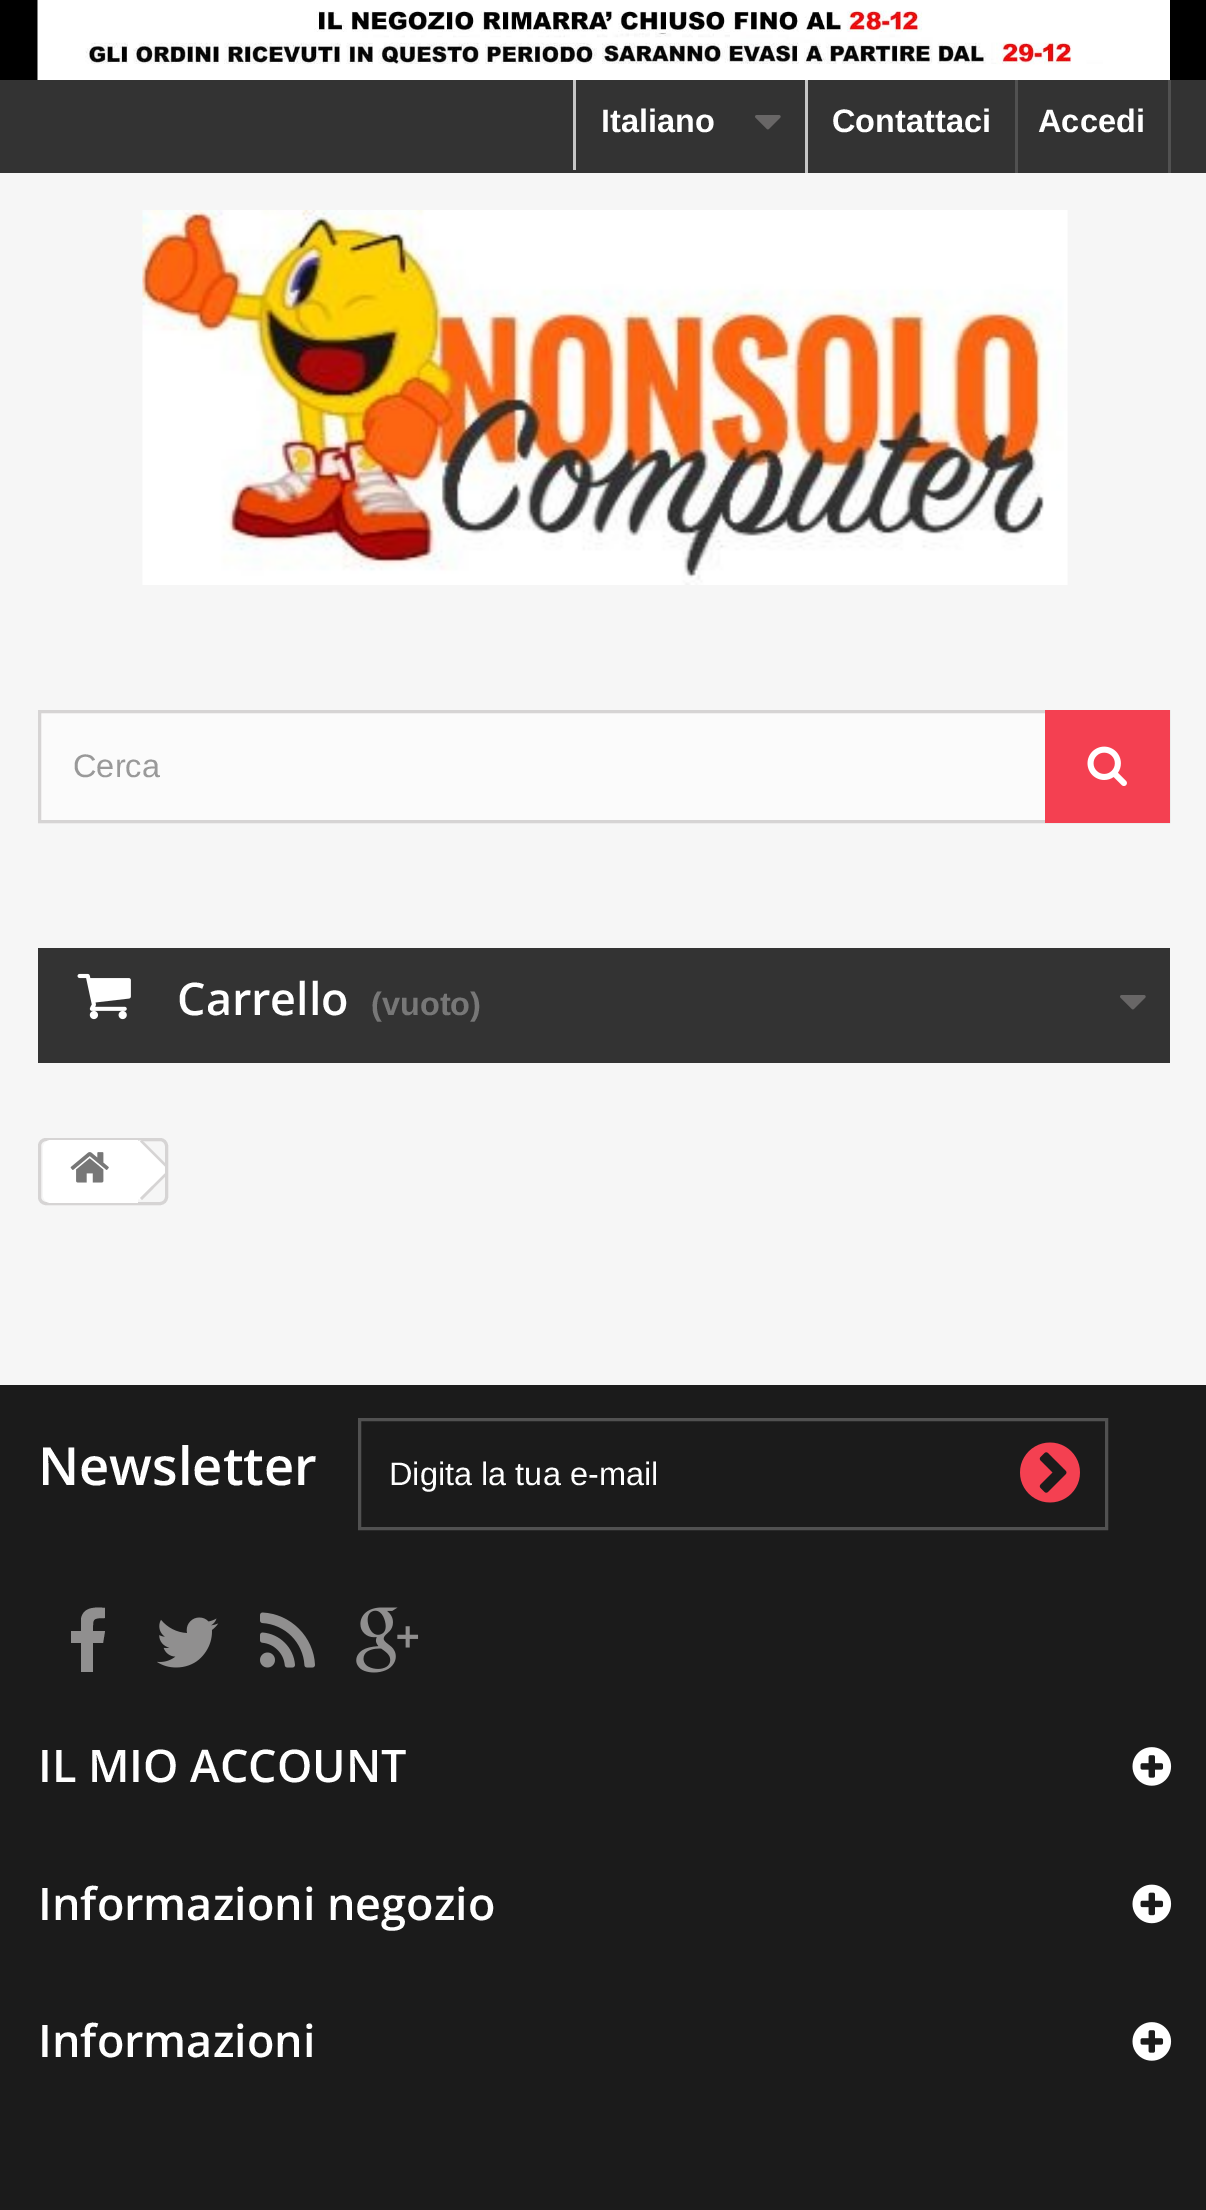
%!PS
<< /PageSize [1206 2210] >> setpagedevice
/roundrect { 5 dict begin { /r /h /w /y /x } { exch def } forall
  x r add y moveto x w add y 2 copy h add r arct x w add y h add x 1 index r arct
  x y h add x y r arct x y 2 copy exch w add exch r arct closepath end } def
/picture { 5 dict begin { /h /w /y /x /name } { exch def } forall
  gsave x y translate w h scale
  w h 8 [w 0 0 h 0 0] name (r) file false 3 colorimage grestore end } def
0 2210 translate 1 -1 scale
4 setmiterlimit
0.965 setgray
0 0 1206 2210 rectfill
0 setgray
0 0 1206 80 rectfill
(img1.rgb) 37 0 1133 80 picture
0.2 setgray
0 80 1206 93 rectfill
0.776 setgray
573 80 3 90 rectfill
/LiberationSans-Bold [32.5 0 0 -32.5 0 0] selectfont
1 setgray
601 132 moveto (Italiano) show
(img2.rgb) 755 115 26 15 picture
0.776 setgray
805 80 3 93 rectfill
1 setgray
832 132 moveto (Contattaci) show
0.318 setgray
1168 80 3 93 rectfill
1015 80 3 93 rectfill
1 setgray
1038 132 moveto (Accedi) show
(img3.rgb) 142 210 926 375 picture
0.984 setgray
41 713 1004 107 rectfill
0.839 0.831 0.831 setrgbcolor
3 setlinewidth
39.5 711.5 1129 110 rectstroke
/LiberationSans-Regular [32.5 0 0 -32.5 0 0] selectfont
0.6 setgray
73 777 moveto (Cerca) show
0.957 0.251 0.318 setrgbcolor
1045 710 125 113 rectfill
(img4.rgb) 1087 746 40 40 picture
0.2 setgray
38 948 1132 115 rectfill
(img5.rgb) 77 973 54 47 picture
/OpenSans-SemiBold [45 0 0 -45 0 0] selectfont
1 setgray
177 1015 moveto (Carrello) show
/LiberationSans-Bold [32.5 0 0 -32.5 0 0] selectfont
0.467 setgray
371 1015 moveto (\(vuoto\)) show
(img2.rgb) 1120 995 26 15 picture
0.839 0.831 0.831 setrgbcolor
39.5 1139.5 127 64 6.5 roundrect stroke
1 setgray
newpath 51 1140 moveto 138 1140 lineto 138 1203 lineto 51 1203 lineto 46.5 1203 43 1199.5 43 1195 curveto 43 1148 lineto 43 1143.5 46.5 1140 51 1140 curveto closepath fill
(img6.rgb) 70 1152 39 31 picture
newpath 144 1142 moveto 165 1163 lineto 165 1176 lineto 144 1198 lineto 142 1200 138 1200 136 1198 curveto 112 1173 lineto 110 1171 110 1168 112 1166 curveto 136 1142 lineto 138 1140 142 1140 144 1142 curveto closepath fill
0.839 0.831 0.831 setrgbcolor
newpath 142 1140 moveto 165 1163 lineto 165 1166.5 lineto 140 1141.5 lineto closepath 165 1173.5 moveto 165 1176.5 lineto 142 1200 lineto 140 1198 lineto closepath fill
0.106 setgray
0 1385 1206 825 rectfill
/OpenSans-SemiBold [52.5 0 0 -52.5 0 0] selectfont
1 setgray
38 1485 moveto (Newsletter) show
0.318 setgray
359.5 1419.5 747 109 rectstroke
/LiberationSans-Regular [32.5 0 0 -32.5 0 0] selectfont
1 setgray
389 1485 moveto (Digita la tua e-mail) show
(img7.rgb) 1020 1442 60 61 picture
0.565 0.561 0.561 setrgbcolor
newpath 105 1608 moveto 105 1618 lineto 92 1618 93 1619 93 1631 curveto 105 1631 lineto 103 1643 lineto 93 1643 lineto 93 1672 lineto 81 1672 lineto 81 1643 lineto 71 1643 lineto 71 1631 lineto 81 1631 lineto 81 1619 lineto 83 1607 95 1607 105 1608 curveto closepath fill
(img8.rgb) 157 1617 62 51 picture
(img9.rgb) 260 1612 55 56 picture
(img10.rgb) 356 1607 63 66 picture
/OpenSans-SemiBold [45 0 0 -45 0 0] selectfont
1 setgray
38 1782 moveto (IL MIO ACCOUNT) show
(img11.rgb) 1132 1747 40 39 picture
38 1920 moveto (Informazioni negozio) show
(img12.rgb) 1132 1884 40 40 picture
38 2057 moveto (Informazioni) show
(img11.rgb) 1132 2022 40 39 picture
showpage
